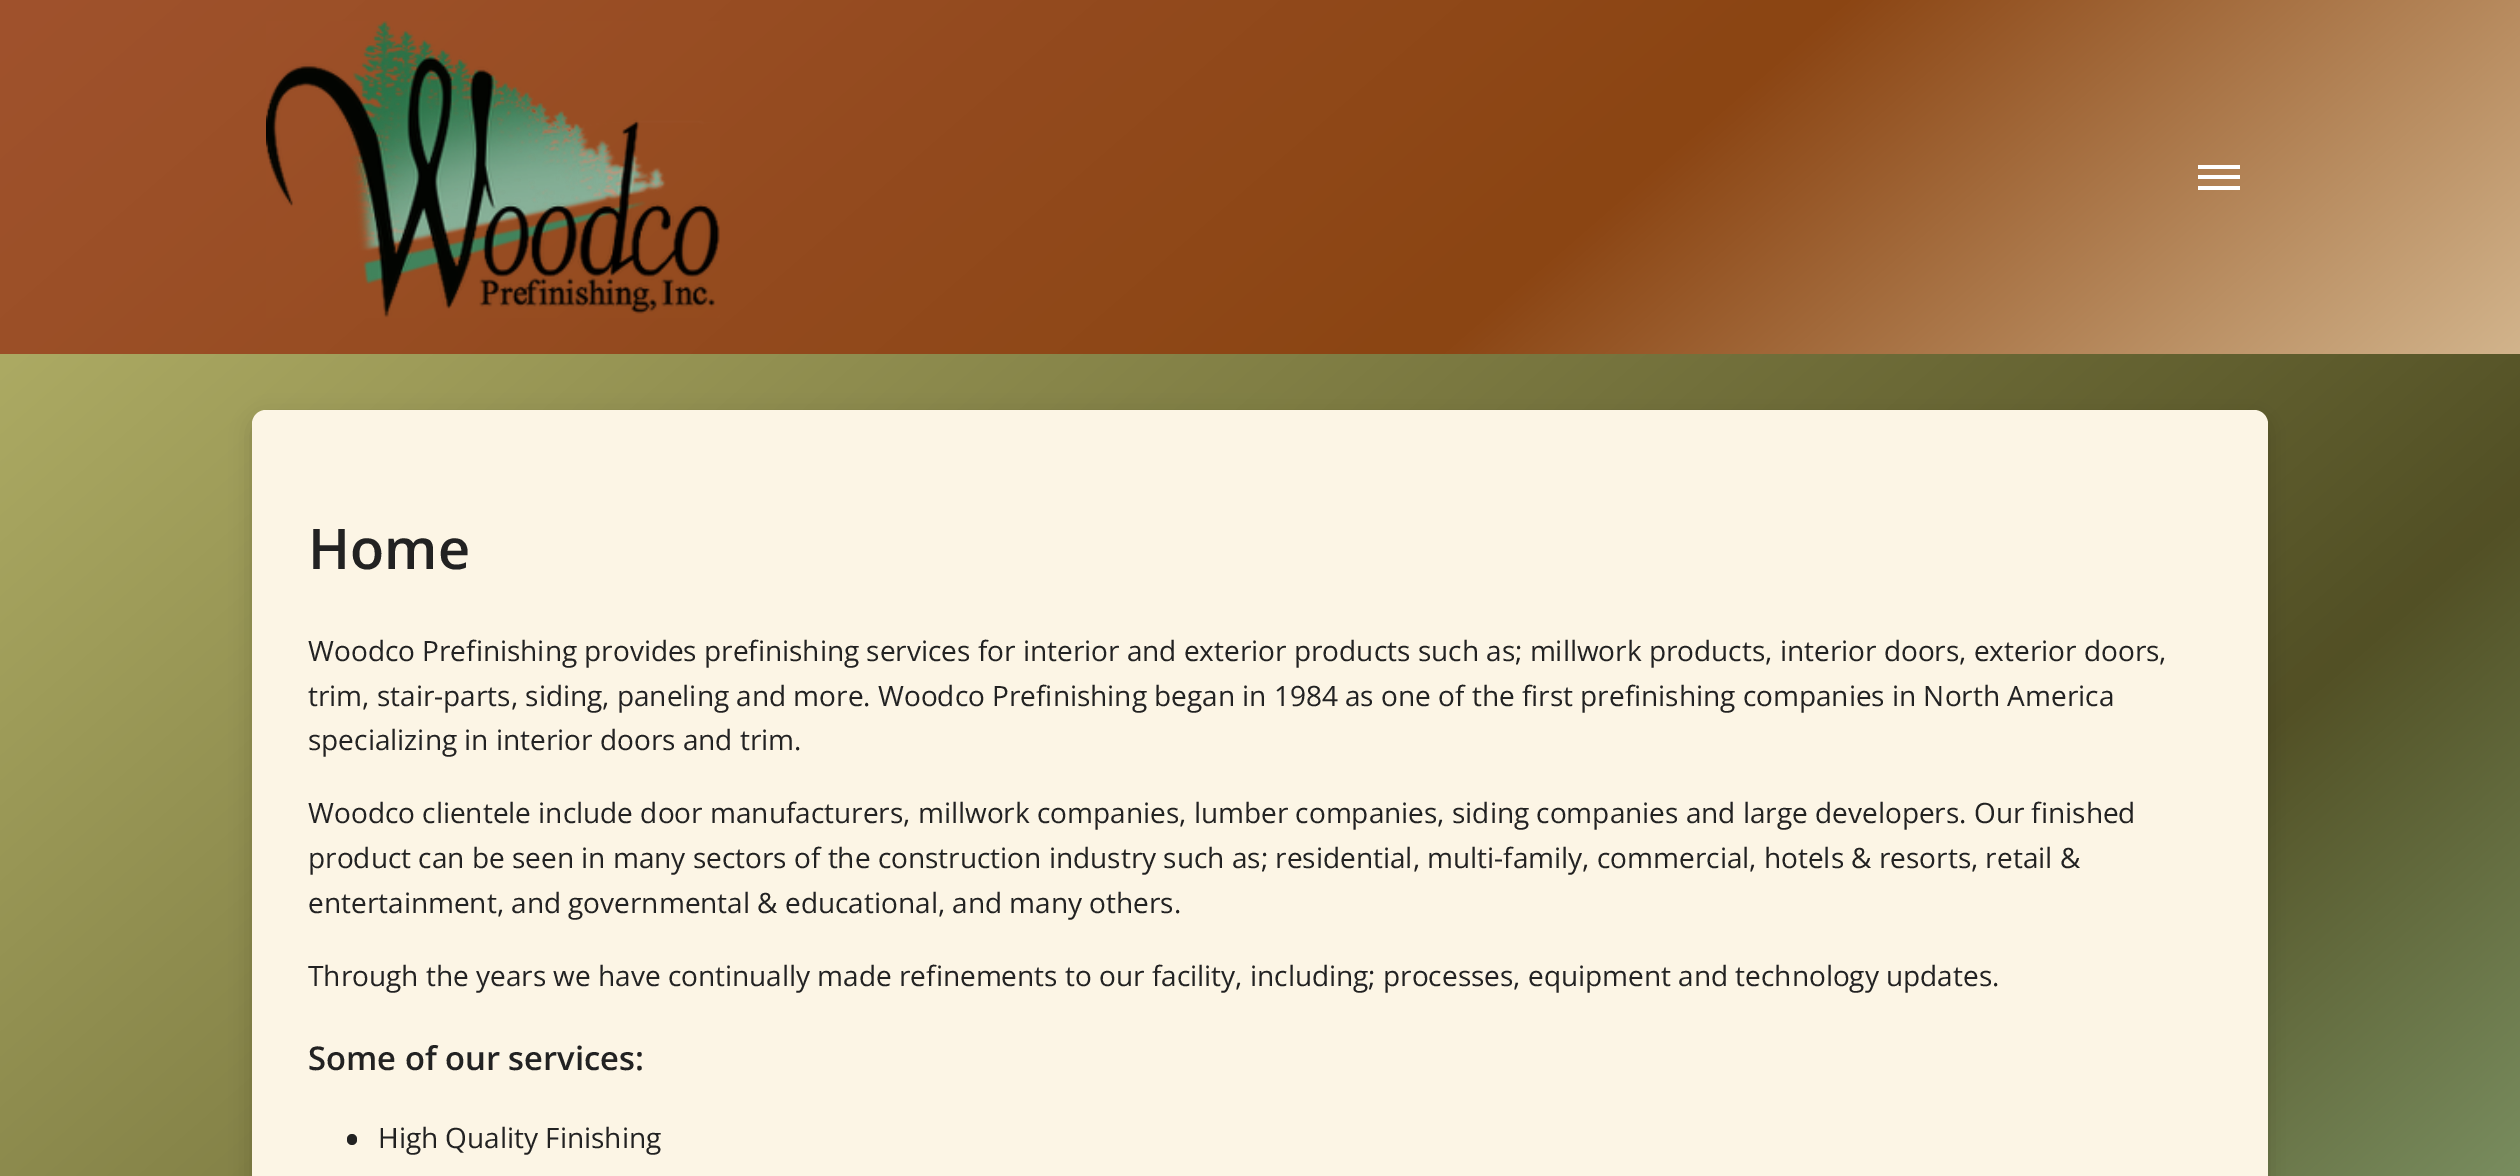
%!PS
<< /PageSize [2520 1176] /PageUsesTransparency true >> setpagedevice
/alpha { dup .setfillconstantalpha .setstrokeconstantalpha } def
/roundrect { 5 dict begin { /r /h /w /y /x } { exch def } forall
  x r add y moveto x w add y 2 copy h add r arct x w add y h add x 1 index r arct
  x y h add x y r arct x y 2 copy exch w add exch r arct closepath end } def
/shadow { 12 dict begin { /a /b /q /h /w /y /x } { exch def } forall gsave /was 0 def
  9 -2 -9 { dup b mul 4 div /e exch def 1 sub .425 mul 2.718 exch exp 1 add a .99 .min exch div /now exch def
    1 1 now sub 1 was sub div sub alpha /was now def
    w h .min e 2 mul add 0 gt { x e sub y e sub w e 2 mul add h e 2 mul add
      q e add b .6 mul add w h .min 2 div e add .min 0 .max roundrect fill } if } for grestore end } def
/picture { 5 dict begin { /h /w /y /x /name } { exch def } forall
  gsave x y translate w h scale
  w h 8 [w 0 0 h 0 0] name (r) file false 3 colorimage grestore end } def
0 .pushpdf14devicefilter
0 1176 translate 1 -1 scale
4 setmiterlimit
1 setgray
0 0 2520 1176 rectfill
gsave newpath 0 354 moveto 2520 354 lineto 2520 1176 lineto 0 1176 lineto closepath clip newpath
<< /ShadingType 2 /ColorSpace /DeviceRGB /Coords [2319 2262 201 -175] /Extend [true true] /Function << /FunctionType 3 /Domain [0 1] /Functions [<< /FunctionType 2 /Domain [0 1] /C0 [0.678 0.875 0.678] /C1 [0.322 0.314 0.145] /N 1 >> << /FunctionType 2 /Domain [0 1] /C0 [0.322 0.314 0.145] /C1 [0.729 0.722 0.424] /N 1 >>] /Bounds [0.37] /Encode [0 1 0 1] >> >> shfill grestore
gsave newpath 0 0 moveto 2520 0 lineto 2520 354 lineto 0 354 lineto closepath clip newpath
<< /ShadingType 2 /ColorSpace /DeviceRGB /Coords [1890 901 630 -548] /Extend [true true] /Function << /FunctionType 3 /Domain [0 1] /Functions [<< /FunctionType 2 /Domain [0 1] /C0 [0.824 0.706 0.549] /C1 [0.545 0.271 0.075] /N 1 >> << /FunctionType 2 /Domain [0 1] /C0 [0.545 0.271 0.075] /C1 [0.627 0.322 0.176] /N 1 >>] /Bounds [0.37] /Encode [0 1 0 1] >> >> shfill grestore
(img1.rgb) 266 21 454 297 picture
2198 165 42 4 rectfill
2198 175 42 4 rectfill
2198 186 42 4 rectfill
0 setgray
252 417 2016 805 14 10.5 0.15 shadow
0.988 0.961 0.898 setrgbcolor
252 410 2016 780 14 roundrect fill
/OpenSans-SemiBold [56 0 0 -56 0 0] selectfont
0.133 setgray
308 569 moveto (Home) show
/OpenSans-Regular [28 0 0 -28 0 0] selectfont
308 661 moveto (Woodco Prefinishing provides prefinishing services for interior and exterior products such as; millwork products, interior doors, exterior doors,) show
308 706 moveto (trim, stair-parts, siding, paneling and more. Woodco Prefinishing began in 1984 as one of the first prefinishing companies in North America) show
308 750 moveto (specializing in interior doors and trim.) show
308 823 moveto (Woodco clientele include door manufacturers, millwork companies, lumber companies, siding companies and large developers. Our finished) show
308 868 moveto (product can be seen in many sectors of the construction industry such as; residential, multi-family, commercial, hotels & resorts, retail &) show
308 913 moveto (entertainment, and governmental & educational, and many others.) show
308 986 moveto (Through the years we have continually made refinements to our facility, including; processes, equipment and technology updates.) show
/OpenSans-SemiBold [32.75 0 0 -32.75 0 0] selectfont
308 1070 moveto (Some of our services:) show
347 1134 10 11 5 roundrect fill
/OpenSans-Regular [28 0 0 -28 0 0] selectfont
378 1148 moveto (High Quality Finishing) show
.poppdf14devicefilter showpage
